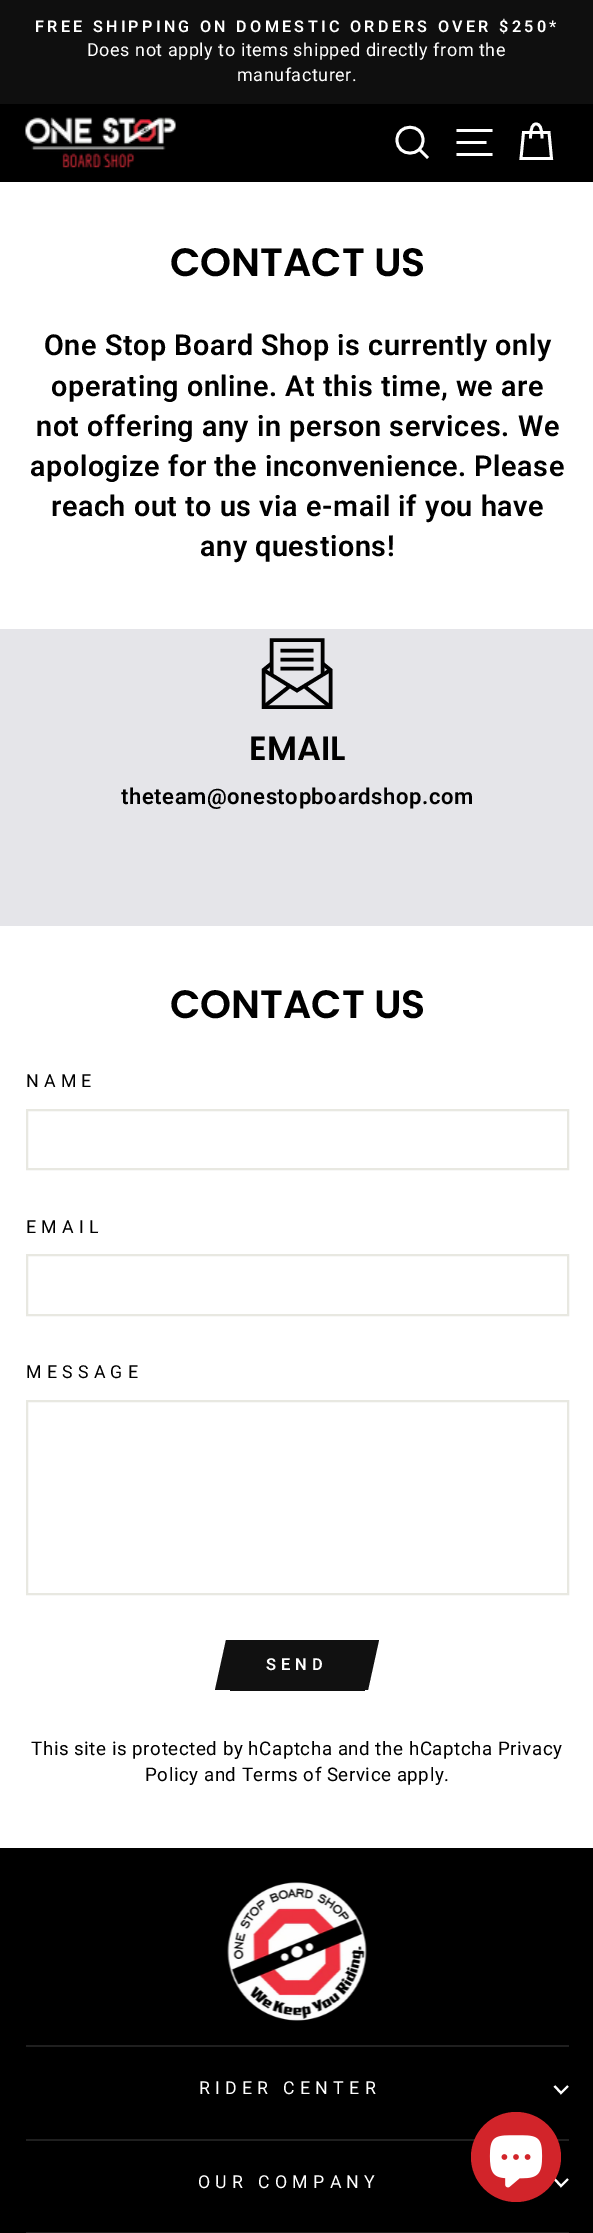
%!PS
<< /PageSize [593 2233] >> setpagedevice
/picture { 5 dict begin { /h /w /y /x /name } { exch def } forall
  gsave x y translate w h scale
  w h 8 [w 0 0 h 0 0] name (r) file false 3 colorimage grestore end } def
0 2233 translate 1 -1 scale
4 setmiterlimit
1 setgray
0 0 593 2233 rectfill
0.059 setgray
0 0 593 104 rectfill
/Roboto-SemiBold [16.2 0 0 -16.2 0 0] selectfont
1 setgray
35 32 moveto 3.25 0 (FREE SHIPPING ON DOMESTIC ORDERS OVER $250*) ashow
/Roboto-Regular [18 0 0 -18 0 0] selectfont
87 56 moveto 0.55 0 (Does not apply to items shipped directly from the) ashow
237 81 moveto 0.55 0 (manufacturer.) ashow
0 setgray
0 104 593 78 rectfill
(img1.rgb) 25 117 151 51 picture
1 setgray
2.8 setlinewidth
newpath 423 140 moveto 423 157.5 397 157.5 397 140 curveto 397 123 423 123 423 140 curveto closepath 428 158 moveto 419.5 149.5 lineto stroke
newpath 456.5 130.5 moveto 492.5 130.5 lineto 456.5 142.5 moveto 486.5 142.5 lineto 456.5 154.5 moveto 492.5 154.5 lineto stroke
newpath 530.5 138.5 moveto 530.5 127 533 124 536 124 curveto 539.5 124 542 127 542 138.5 curveto 523.5 132.5 moveto 549 132.5 lineto 551.5 158.5 lineto 521 158.5 lineto closepath stroke
/Poppins-SemiBold [39.5 0 0 -39.5 0 0] selectfont
0 setgray
170 276 moveto (CONTACT US) show
/Roboto-SemiBold [28.75 0 0 -28.75 0 0] selectfont
44 355 moveto 0.55 0 (One Stop Board Shop is currently only) ashow
51 396 moveto 0.55 0 (operating online. At this time, we are) ashow
36 436 moveto 0.55 0 (not offering any in person services. We) ashow
30 476 moveto 0.55 0 (apologize for the inconvenience. Please) ashow
51 516 moveto 0.55 0 (reach out to us via e-mail if you have) ashow
200 556 moveto 0.55 0 (any questions!) ashow
0.898 0.898 0.914 setrgbcolor
0 629 593 297 rectfill
0 setgray
3.6 setlinewidth
newpath 322.5 674.5 moveto 322.5 640 lineto 271.5 640 lineto 271.5 674.5 lineto 280.5 650.5 moveto 313.5 650.5 lineto 280.5 659.5 moveto 313.5 659.5 lineto 280.5 668.5 moveto 313.5 668.5 lineto stroke
newpath 322.5 663.5 moveto 330.5 670 lineto 330.5 707 lineto 263.5 707 lineto 263.5 670 lineto 271.5 663.5 lineto stroke
newpath 330.5 670 moveto 297 690.5 lineto 263.5 670 lineto 263.5 707 moveto 290 686 lineto 330.5 707 moveto 304 686 lineto stroke
/Poppins-SemiBold [33.5 0 0 -33.5 0 0] selectfont
249 760 moveto (EMAIL) show
/Roboto-SemiBold [22.1 0 0 -22.1 0 0] selectfont
121 804 moveto 0.55 0 (theteam@onestopboardshop.com) ashow
/Poppins-SemiBold [39.5 0 0 -39.5 0 0] selectfont
170 1018 moveto (CONTACT US) show
/Roboto-Regular [17.75 0 0 -17.75 0 0] selectfont
26 1087 moveto 5.25 0 (NAME) ashow
0.91 0.91 0.882 setrgbcolor
2 setlinewidth
27 1110 541 59 rectstroke
0 setgray
26 1233 moveto 5.25 0 (EMAIL) ashow
0.91 0.91 0.882 setrgbcolor
27 1255 541 60 rectstroke
0 setgray
26 1378 moveto 5.25 0 (MESSAGE) ashow
0.91 0.91 0.882 setrgbcolor
27 1401 541 193 rectstroke
0.067 setgray
230 1640 135 51 rectfill
newpath 226 1640 moveto 256 1640 lineto 245 1690 lineto 215 1690 lineto closepath fill
/Roboto-SemiBold [16.5 0 0 -16.5 0 0] selectfont
1 setgray
266 1670 moveto 5 0 (SEND) ashow
0.067 setgray
newpath 349 1640 moveto 379 1640 lineto 368 1690 lineto 338 1690 lineto closepath fill
/Roboto-Regular [18.75 0 0 -18.75 0 0] selectfont
0 setgray
31 1755 moveto 0.55 0 (This site is protected by hCaptcha and the hCaptcha) ashow
498 1755 moveto 0.55 0 (Privacy) ashow
145 1781 moveto 0.55 0 (Policy and Terms of Service apply.) ashow
0 1848 593 385 rectfill
(img2.rgb) 227 1882 140 139 picture
0.122 setgray
26 2045 543 2 rectfill
/Roboto-Regular [17.75 0 0 -17.75 0 0] selectfont
1 setgray
199 2094 moveto 5.25 0 (RIDER CENTER) ashow
2.1 setlinewidth
newpath 554.5 2086 moveto 561 2093 lineto 568 2086 lineto stroke
0.122 setgray
26 2139 543 2 rectfill
1 setgray
198 2188 moveto 5.25 0 (OUR COMPANY) ashow
newpath 554.5 2179 moveto 561 2186 lineto 568 2179 lineto stroke
0.122 setgray
26 2232 543 1 rectfill
0.824 0.141 0.165 setrgbcolor
newpath 516 2157 45 0 360 arc closepath fill
(img3.rgb) 489 2135 54 53 picture
showpage
